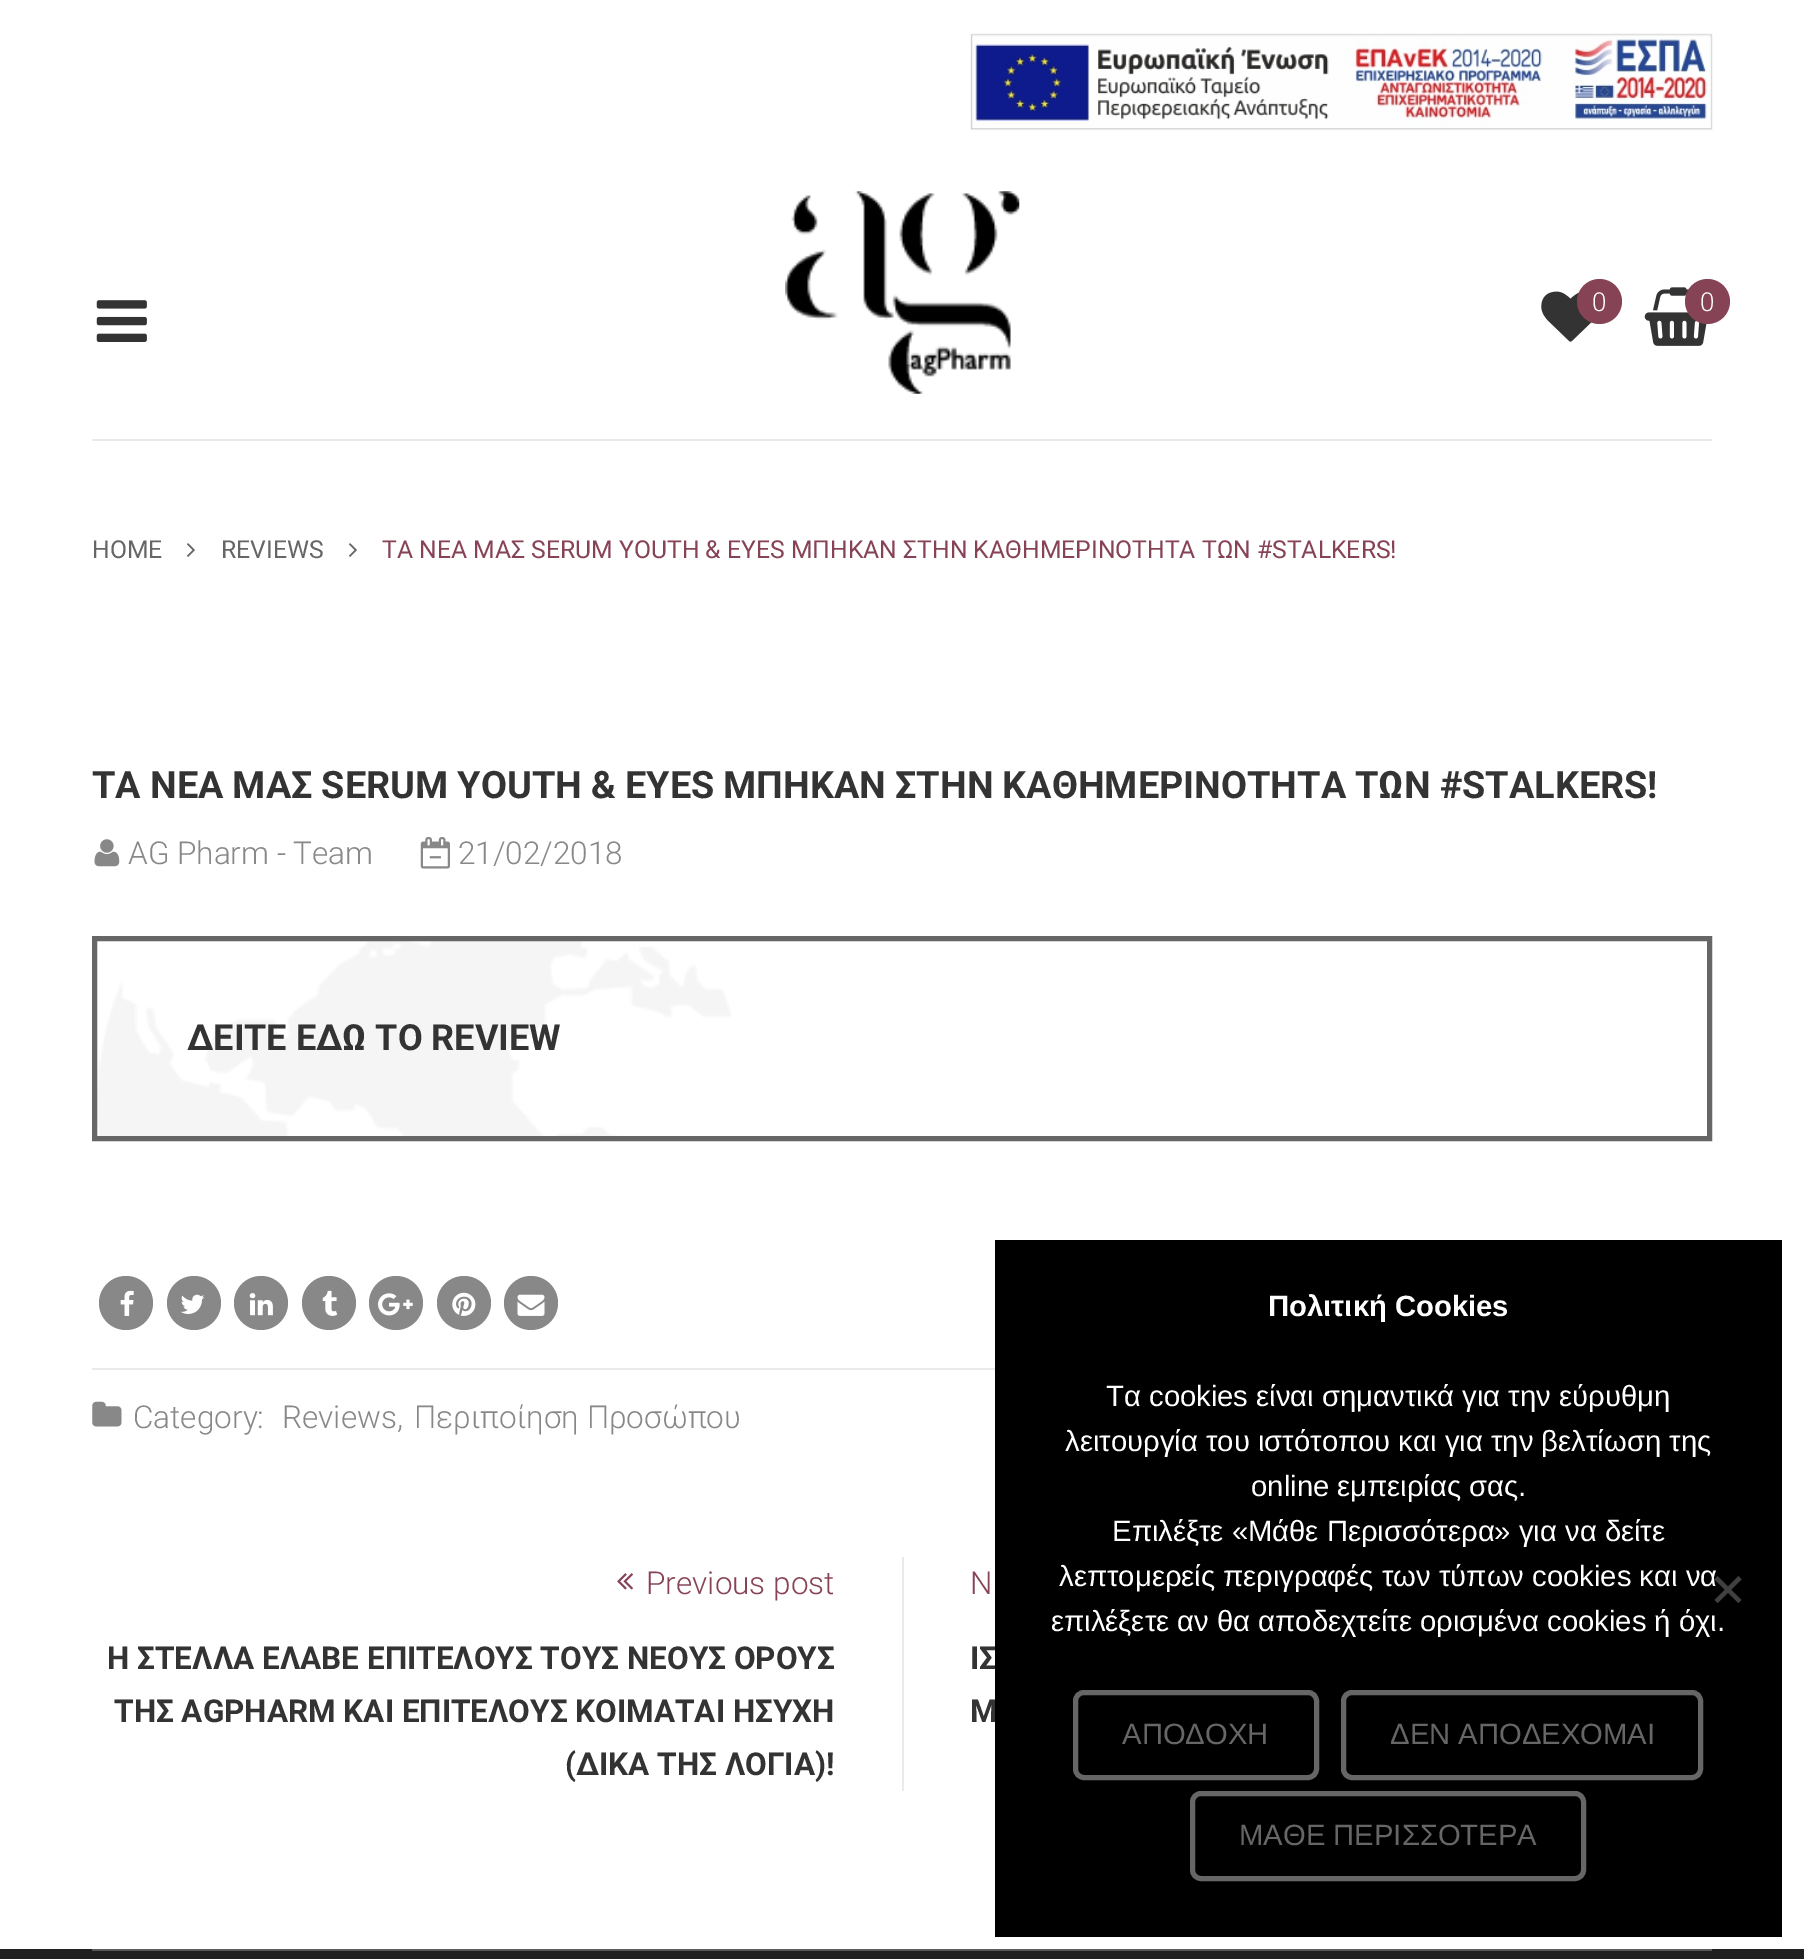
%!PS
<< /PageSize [1804 1959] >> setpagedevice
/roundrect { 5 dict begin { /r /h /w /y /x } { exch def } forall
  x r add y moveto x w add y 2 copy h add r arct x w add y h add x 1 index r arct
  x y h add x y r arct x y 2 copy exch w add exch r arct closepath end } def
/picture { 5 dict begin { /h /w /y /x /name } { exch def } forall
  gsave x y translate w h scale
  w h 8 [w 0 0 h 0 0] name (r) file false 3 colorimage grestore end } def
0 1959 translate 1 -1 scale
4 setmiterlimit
1 setgray
0 0 1804 1959 rectfill
(img1.rgb) 970 33 743 98 picture
(img2.rgb) 96 300 51 42 picture
(img3.rgb) 785 191 235 203 picture
(img4.rgb) 1541 291 51 51 picture
0.529 0.263 0.337 setrgbcolor
newpath 1599.5 301.5 22.5 0 360 arc closepath fill
/Roboto-Light [26 0 0 -26 0 0] selectfont
1 setgray
1592 311 moveto (0) show
(img5.rgb) 1644 287 63 59 picture
0.529 0.263 0.337 setrgbcolor
newpath 1707.5 301.5 22.5 0 360 arc closepath fill
1 setgray
1700 311 moveto (0) show
0.918 setgray
92 439 1620 2 rectfill
/Roboto-Regular [24.75 0 0 -24.75 0 0] selectfont
0.4 setgray
92 558 moveto (HOME) show
(img6.rgb) 187 543 8 14 picture
221 558 moveto (REVIEWS) show
(img6.rgb) 349 543 8 14 picture
0.529 0.263 0.337 setrgbcolor
382 558 moveto (ΤΑ ΝΕΑ ΜΑΣ SERUM YOUTH & EYES ΜΠΗΚΑΝ ΣΤΗΝ ΚΑΘΗΜΕΡΙΝΟΤΗΤΑ ΤΩΝ #STALKERS!) show
/Roboto-Bold [37.8 0 0 -37.8 0 0] selectfont
0.2 setgray
92 798 moveto -0.25 0 32 (ΤΑ ΝΕΑ ΜΑΣ SERUM YOUTH & EYES ΜΠΗΚΑΝ ΣΤΗΝ ΚΑΘΗΜΕΡΙΝΟΤΗΤΑ ΤΩΝ #STALKERS!) widthshow
(img7.rgb) 94 839 26 28 picture
/Roboto-Light [31.5 0 0 -31.5 0 0] selectfont
0.533 setgray
128 864 moveto (AG Pharm - Team) show
(img8.rgb) 420 837 30 32 picture
458 864 moveto (21/02/2018) show
(img9.rgb) 97 941 634 195 picture
0.4 setgray
5 setlinewidth
94.5 938.5 1615 200 rectstroke
/Roboto-Bold [36 0 0 -36 0 0] selectfont
0.2 setgray
187 1050 moveto (ΔΕΙΤΕ ΕΔΩ ΤΟ REVIEW) show
0.533 setgray
newpath 126 1303 27 0 360 arc closepath fill
(img10.rgb) 120 1290 14 26 picture
newpath 194 1303 27 0 360 arc closepath fill
(img11.rgb) 180 1294 25 20 picture
newpath 261 1303 27 0 360 arc closepath fill
(img12.rgb) 249 1293 24 23 picture
newpath 329 1303 27 0 360 arc closepath fill
(img13.rgb) 322 1290 16 26 picture
newpath 396 1303 27 0 360 arc closepath fill
(img14.rgb) 378 1293 35 23 picture
newpath 464 1303 27 0 360 arc closepath fill
(img15.rgb) 452 1292 24 24 picture
newpath 531 1303 27 0 360 arc closepath fill
(img16.rgb) 517 1294 28 22 picture
0.918 setgray
92 1368 903 2 rectfill
(img17.rgb) 92 1401 30 26 picture
/Roboto-Light [31.5 0 0 -31.5 0 0] selectfont
0.533 setgray
133 1428 moveto (Category:) show
282 1428 moveto (Reviews,) show
414 1428 moveto (Περιποίηση Προσώπου) show
(img18.rgb) 617 1573 16 17 picture
0.529 0.263 0.337 setrgbcolor
646 1594 moveto (Previous post) show
/Roboto-Bold [31.5 0 0 -31.5 0 0] selectfont
0.2 setgray
107 1669 moveto (Η ΣΤΕΛΛΑ ΕΛΑΒΕ ΕΠΙΤΕΛΟΥΣ ΤΟΥΣ ΝΕΟΥΣ ΟΡΟΥΣ) show
114 1722 moveto (ΤΗΣ AGPHARM ΚΑΙ ΕΠΙΤΕΛΟΥΣ ΚΟΙΜΑΤΑΙ ΗΣΥΧΗ) show
565 1775 moveto (\(ΔΙΚΑ ΤΗΣ ΛΟΓΙΑ\)!) show
0.918 setgray
902 1557 2 234 rectfill
/Roboto-Light [31.5 0 0 -31.5 0 0] selectfont
0.529 0.263 0.337 setrgbcolor
970 1594 moveto (N) show
/Roboto-Bold [31.5 0 0 -31.5 0 0] selectfont
0.2 setgray
970 1669 moveto (ΙΣ) show
970 1722 moveto (Μ) show
0.125 setgray
0 1949 1804 10 rectfill
0.353 setgray
92 1949 1620 2 rectfill
0 setgray
995 1240 787 697 rectfill
/LiberationSans-Bold [29.25 0 0 -29.25 0 0] selectfont
1 setgray
1268 1316 moveto (Πολιτική Cookies) show
/LiberationSans-Regular [29.25 0 0 -29.25 0 0] selectfont
1106 1406 moveto (Τα cookies είναι σημαντικά για την εύρυθμη) show
1065 1451 moveto (λειτουργία του ιστότοπου και για την βελτίωση της) show
1251 1496 moveto (online εμπειρίας σας.) show
1112 1541 moveto (Επιλέξτε «Μάθε Περισσότερα» για να δείτε) show
1059 1586 moveto (λεπτομερείς περιγραφές των τύπων cookies και να) show
1051 1631 moveto (επιλέξετε αν θα αποδεχτείτε ορισμένα cookies ή όχι.) show
0.251 setgray
newpath 1738.5 1576 moveto 1741.5 1579.5 lineto 1717.5 1603 lineto 1714.5 1600 lineto closepath fill
newpath 1714.5 1579.5 moveto 1717.5 1576 lineto 1741.5 1600 lineto 1738.5 1603 lineto closepath fill
0.4 setgray
1075.5 1692.5 241 85 8.5 roundrect stroke
1122 1744 moveto (ΑΠΟΔΟΧΗ) show
1343.5 1692.5 357 85 8.5 roundrect stroke
1390 1744 moveto (ΔΕΝ ΑΠΟΔΕΧΟΜΑΙ) show
1192.5 1793.5 391 85 8.5 roundrect stroke
1239 1845 moveto (ΜΑΘΕ ΠΕΡΙΣΣΟΤΕΡΑ) show
showpage
